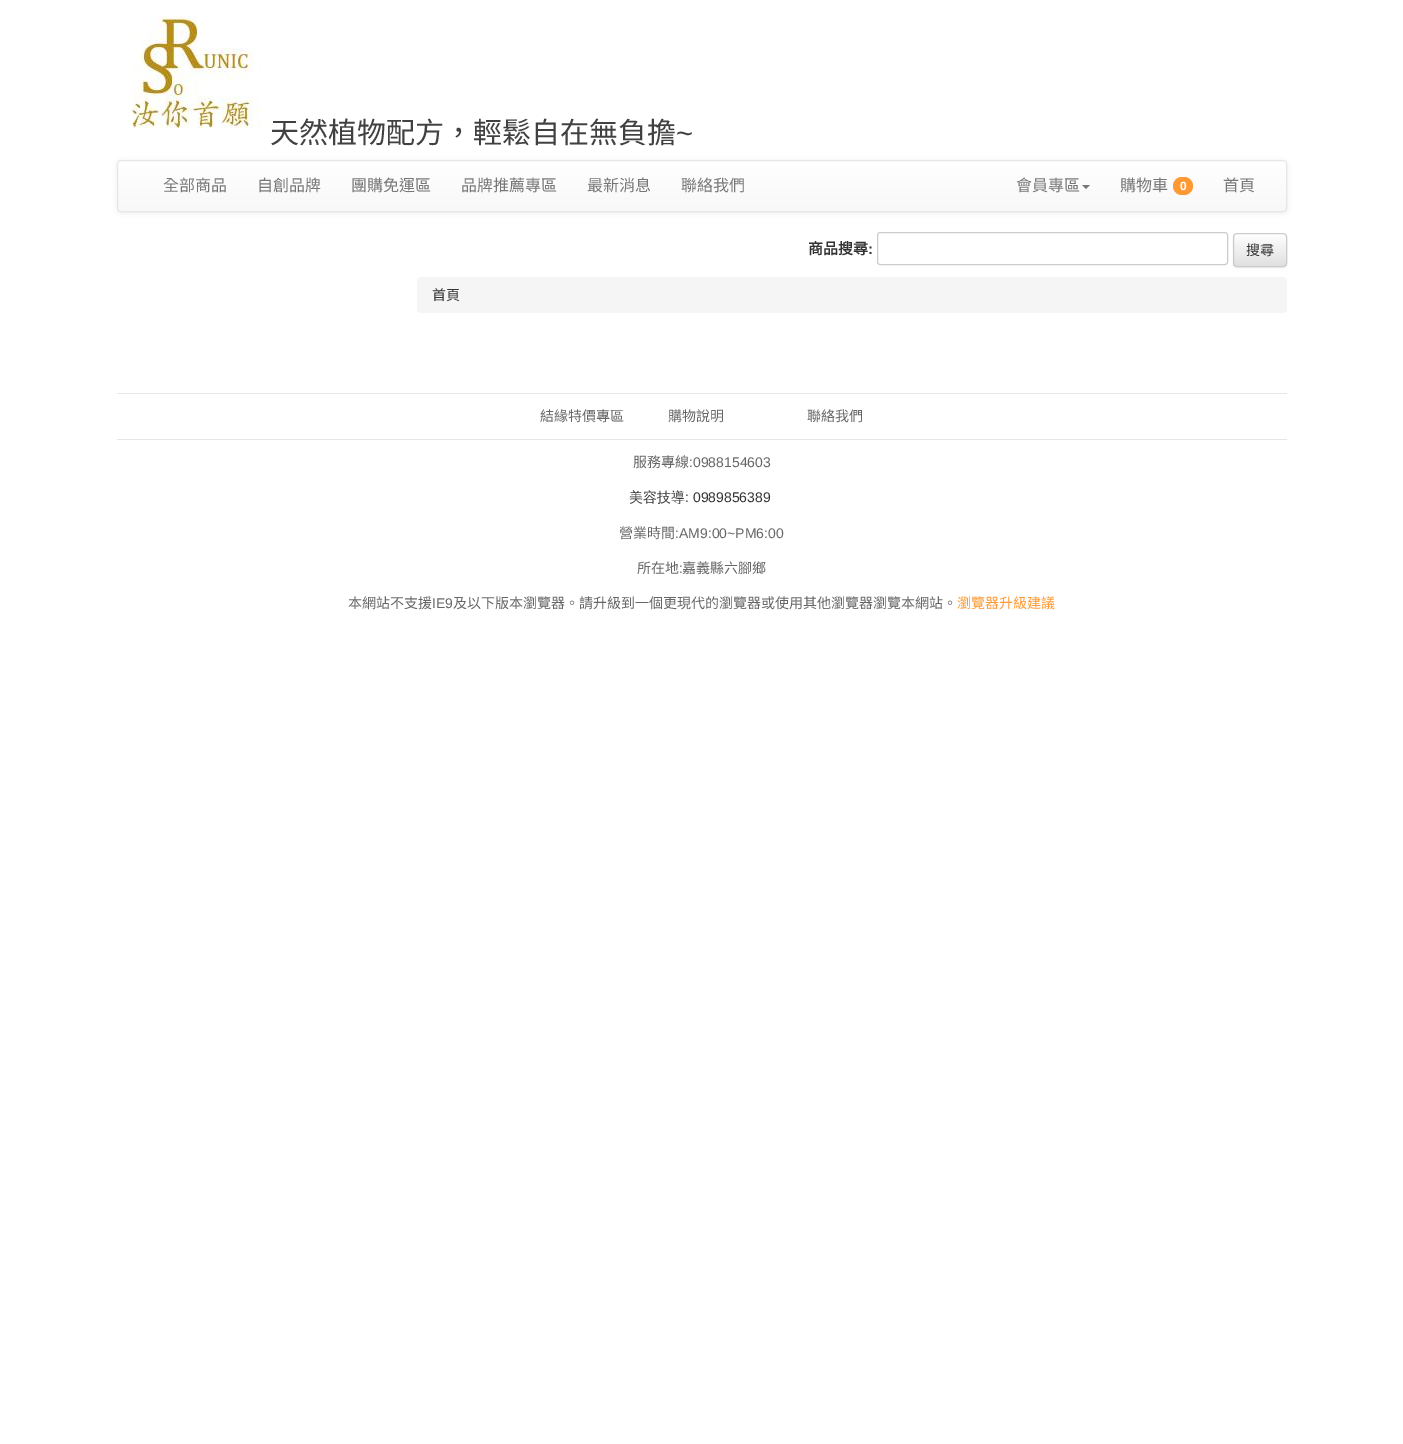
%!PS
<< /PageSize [1403 1444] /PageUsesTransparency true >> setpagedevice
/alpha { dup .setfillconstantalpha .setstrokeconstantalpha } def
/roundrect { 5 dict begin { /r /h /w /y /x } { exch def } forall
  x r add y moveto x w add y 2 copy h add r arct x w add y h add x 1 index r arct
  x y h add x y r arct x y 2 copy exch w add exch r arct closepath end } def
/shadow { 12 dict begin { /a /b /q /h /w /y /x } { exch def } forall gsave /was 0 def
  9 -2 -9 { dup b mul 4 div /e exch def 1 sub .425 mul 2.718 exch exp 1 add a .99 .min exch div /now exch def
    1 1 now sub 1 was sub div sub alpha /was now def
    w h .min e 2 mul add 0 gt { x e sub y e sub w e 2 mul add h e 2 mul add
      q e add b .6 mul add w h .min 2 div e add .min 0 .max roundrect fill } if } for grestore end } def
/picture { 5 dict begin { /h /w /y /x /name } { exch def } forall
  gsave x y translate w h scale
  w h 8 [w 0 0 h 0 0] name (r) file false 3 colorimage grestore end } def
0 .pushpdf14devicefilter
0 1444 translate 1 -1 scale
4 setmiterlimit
1 setgray
0 0 1403 1444 rectfill
(img1.rgb) 131 16 131 113 picture
/NotoSansCJKTC-Regular [29 0 0 -29 0 0] selectfont
0.255 setgray
270 143 moveto (天然植物配方，輕鬆自在無負擔) show
/LiberationSans-Regular [29 0 0 -29 0 0] selectfont
676 143 moveto (~) show
0 setgray
117 161 1170 52 4 2.5 0.07 shadow
gsave
117 160 1170 52 4 roundrect clip newpath
gsave newpath 117 161 moveto 1287 161 lineto 1287 211 lineto 117 211 lineto closepath clip newpath
<< /ShadingType 2 /ColorSpace /DeviceRGB /Coords [702 161 702 211] /Extend [true true] /Function << /FunctionType 2 /Domain [0 1] /C0 [1 1 1] /C1 [0.973 0.973 0.973] /N 1 >> >> shfill grestore
grestore
0.906 setgray
117.5 160.5 1169 51 3.5 roundrect stroke
/NotoSansCJKTC-Regular [16 0 0 -16 0 0] selectfont
0.467 setgray
163 191 moveto (全部商品) show
257 191 moveto (自創品牌) show
351 191 moveto (團購免運區) show
461 191 moveto (品牌推薦專區) show
587 191 moveto (最新消息) show
681 191 moveto (聯絡我們) show
1016 191 moveto (會員專區) show
newpath 1082 185 moveto 1090 185 lineto 1086 189 lineto closepath fill
1120 191 moveto (購物車) show
1 0.6 0.2 setrgbcolor
1173 177 20 18 9 roundrect fill
/LiberationSans-Bold [12 0 0 -12 0 0] selectfont
1 setgray
1180 190 moveto (0) show
/NotoSansCJKTC-Regular [16 0 0 -16 0 0] selectfont
0.467 setgray
1223 191 moveto (首頁) show
/NotoSansCJKTC-Bold [15 0 0 -15 0 0] selectfont
0.2 setgray
808 254 moveto (商品搜尋) show
/LiberationSans-Bold [15 0 0 -15 0 0] selectfont
868 254 moveto (:) show
0.8 setgray
877.5 232.5 350 32 2.5 roundrect stroke
0 setgray
1233 234 54 34 4 0.5 0.07 shadow
gsave
1233 233 54 34 4 roundrect clip newpath
gsave newpath 1233 234 moveto 1287 234 lineto 1287 266 lineto 1233 266 lineto closepath clip newpath
<< /ShadingType 2 /ColorSpace /DeviceRGB /Coords [1260 234 1260 266] /Extend [true true] /Function << /FunctionType 2 /Domain [0 1] /C0 [1 1 1] /C1 [0.878 0.878 0.878] /N 1 >> >> shfill grestore
grestore
0.8 setgray
1233.5 233.5 53 33 3.5 roundrect stroke
/NotoSansCJKTC-Regular [14 0 0 -14 0 0] selectfont
0.2 setgray
1246 255 moveto (搜尋) show
0.961 setgray
417 277 870 36 4 roundrect fill
0.2 setgray
432 300 moveto (首頁) show
0.902 setgray
117 393 1170 1 rectfill
117 439 1170 1 rectfill
0.4 setgray
540 421 moveto (結緣特價專區) show
668 421 moveto (購物說明) show
807 421 moveto (聯絡我們) show
633 467 moveto (服務專線) show
/LiberationSans-Regular [14 0 0 -14 0 0] selectfont
689 467 moveto (:0988154603) show
/WenQuanYiZenHei-Medium [14 0 0 -14 0 0] selectfont
0.2 setgray
629 502 moveto (美容技導) show
/LiberationSans-Regular [14 0 0 -14 0 0] selectfont
685 502 moveto (: 0989856389) show
/NotoSansCJKTC-Regular [14 0 0 -14 0 0] selectfont
0.4 setgray
619 538 moveto (營業時間) show
/LiberationSans-Regular [14 0 0 -14 0 0] selectfont
675 538 moveto (:AM9:00~PM6:00) show
/NotoSansCJKTC-Regular [14 0 0 -14 0 0] selectfont
637 573 moveto (所在地) show
/LiberationSans-Regular [14 0 0 -14 0 0] selectfont
679 573 moveto (:) show
/NotoSansCJKTC-Regular [14 0 0 -14 0 0] selectfont
682 573 moveto (嘉義縣六腳鄉) show
348 608 moveto (本網站不支援) show
/LiberationSans-Regular [14 0 0 -14 0 0] selectfont
432 608 moveto (IE9) show
/NotoSansCJKTC-Regular [14 0 0 -14 0 0] selectfont
453 608 moveto (及以下版本瀏覽器。請升級到一個更現代的瀏覽器或使用其他瀏覽器瀏覽本網站。) show
1 0.6 0.2 setrgbcolor
957 608 moveto (瀏覽器升級建議) show
.poppdf14devicefilter showpage
